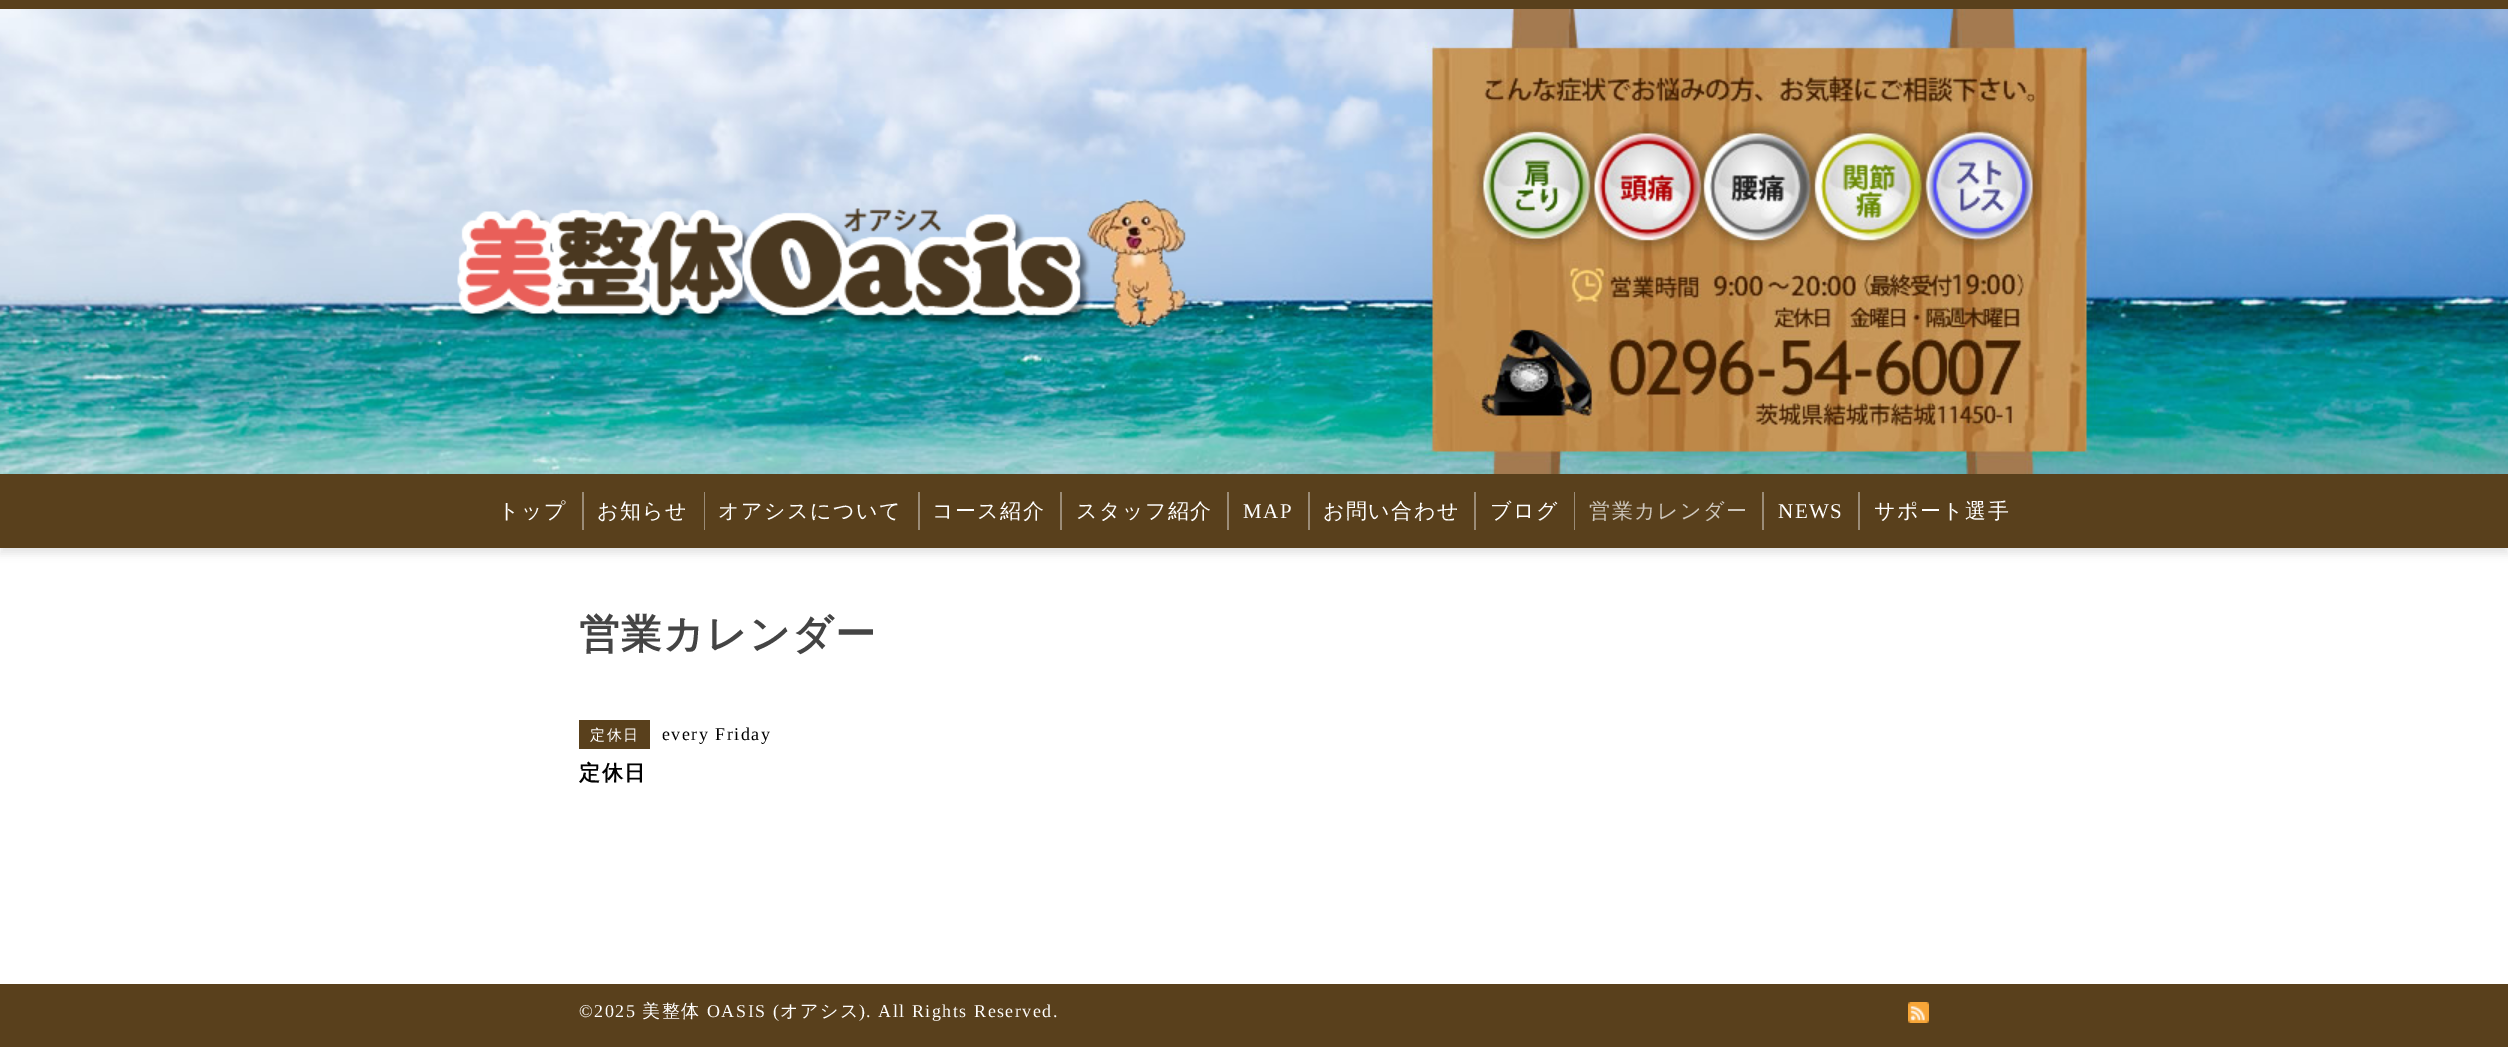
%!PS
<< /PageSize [2508 1048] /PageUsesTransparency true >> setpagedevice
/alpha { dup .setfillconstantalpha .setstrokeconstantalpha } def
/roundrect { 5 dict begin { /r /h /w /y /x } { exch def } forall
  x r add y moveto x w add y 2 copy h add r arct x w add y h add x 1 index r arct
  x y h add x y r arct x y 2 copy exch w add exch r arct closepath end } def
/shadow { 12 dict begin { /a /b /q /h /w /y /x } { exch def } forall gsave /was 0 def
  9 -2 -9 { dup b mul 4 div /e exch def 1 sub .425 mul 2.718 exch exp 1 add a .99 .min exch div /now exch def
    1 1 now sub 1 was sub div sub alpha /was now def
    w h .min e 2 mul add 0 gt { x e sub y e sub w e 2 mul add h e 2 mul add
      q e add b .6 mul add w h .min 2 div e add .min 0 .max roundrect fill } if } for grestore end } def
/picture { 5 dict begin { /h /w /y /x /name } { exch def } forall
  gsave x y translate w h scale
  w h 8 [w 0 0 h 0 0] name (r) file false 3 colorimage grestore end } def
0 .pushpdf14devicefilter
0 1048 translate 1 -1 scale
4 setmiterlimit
1 setgray
0 0 2508 1048 rectfill
(img1.rgb) 0 9 2508 465 picture
0.349 0.251 0.11 setrgbcolor
0 0 2508 9 rectfill
(img2.rgb) 457 199 730 129 picture
0 setgray
0 480 2508 74 0 4 0.1 shadow
0.349 0.251 0.11 setrgbcolor
0 474 2508 74 rectfill
0.608 0.549 0.467 setrgbcolor
newpath 485 530 moveto 584 530 lineto 584 492 lineto 582 492 lineto 582 530 lineto closepath fill
/WenQuanYiZenHei-Medium [21 0 0 -21 0 0] selectfont
1 setgray
498 518 moveto 1.5 0 (トップ) ashow
0.608 0.549 0.467 setrgbcolor
newpath 584 530 moveto 705 530 lineto 705 492 lineto 704 492 lineto 704 530 lineto closepath fill
1 setgray
597 518 moveto 1.5 0 (お知らせ) ashow
0.608 0.549 0.467 setrgbcolor
newpath 705 530 moveto 920 530 lineto 920 492 lineto 918 492 lineto 918 530 lineto closepath fill
1 setgray
718 518 moveto 1.5 0 (オアシスについて) ashow
0.608 0.549 0.467 setrgbcolor
newpath 920 530 moveto 1062 530 lineto 1062 492 lineto 1060 492 lineto 1060 530 lineto closepath fill
1 setgray
932 518 moveto 1.5 0 (コース紹介) ashow
0.608 0.549 0.467 setrgbcolor
newpath 1062 530 moveto 1229 530 lineto 1229 492 lineto 1227 492 lineto 1227 530 lineto closepath fill
1 setgray
1076 518 moveto 1.5 0 (スタッフ紹介) ashow
0.608 0.549 0.467 setrgbcolor
newpath 1229 530 moveto 1310 530 lineto 1310 492 lineto 1308 492 lineto 1308 530 lineto closepath fill
/LiberationSerif-Regular [21 0 0 -21 0 0] selectfont
1 setgray
1243 518 moveto 1.5 0 (MAP) ashow
0.608 0.549 0.467 setrgbcolor
newpath 1310 530 moveto 1476 530 lineto 1476 492 lineto 1474 492 lineto 1474 530 lineto closepath fill
/WenQuanYiZenHei-Medium [21 0 0 -21 0 0] selectfont
1 setgray
1323 518 moveto 1.5 0 (お問い合わせ) ashow
0.608 0.549 0.467 setrgbcolor
newpath 1476 530 moveto 1575 530 lineto 1575 492 lineto 1574 492 lineto 1574 530 lineto closepath fill
1 setgray
1490 518 moveto 1.5 0 (ブログ) ashow
0.608 0.549 0.467 setrgbcolor
newpath 1575 530 moveto 1764 530 lineto 1764 492 lineto 1762 492 lineto 1762 530 lineto closepath fill
0.804 0.776 0.733 setrgbcolor
1589 518 moveto 1.5 0 (営業カレンダー) ashow
0.608 0.549 0.467 setrgbcolor
newpath 1764 530 moveto 1860 530 lineto 1860 492 lineto 1858 492 lineto 1858 530 lineto closepath fill
/LiberationSerif-Regular [21 0 0 -21 0 0] selectfont
1 setgray
1778 518 moveto 1.5 0 (NEWS) ashow
/WenQuanYiZenHei-Medium [21 0 0 -21 0 0] selectfont
1874 518 moveto 1.5 0 (サポート選手) ashow
/WenQuanYiZenHei-Bold [40.5 0 0 -40.5 0 0] selectfont
0.267 setgray
579 648 moveto 1.5 0 (営業カレンダー) ashow
0.349 0.251 0.11 setrgbcolor
579 720 71 29 rectfill
/WenQuanYiZenHei-Medium [15 0 0 -15 0 0] selectfont
1 setgray
590 740 moveto 1.5 0 (定休日) ashow
/LiberationSerif-Regular [18 0 0 -18 0 0] selectfont
0 setgray
662 740 moveto 1.5 0 (every Friday) ashow
/WenQuanYiZenHei-Bold [21 0 0 -21 0 0] selectfont
579 780 moveto 1.5 0 (定休日) ashow
0.349 0.251 0.11 setrgbcolor
0 984 2508 63 rectfill
/LiberationSerif-Regular [18 0 0 -18 0 0] selectfont
1 setgray
579 1017 moveto 1.5 0 (©2025) ashow
/WenQuanYiZenHei-Medium [18 0 0 -18 0 0] selectfont
642 1017 moveto 1.5 0 (美整体) ashow
/LiberationSerif-Regular [18 0 0 -18 0 0] selectfont
707 1017 moveto 1.5 0 (OASIS \() ashow
/WenQuanYiZenHei-Medium [18 0 0 -18 0 0] selectfont
780 1017 moveto 1.5 0 (オアシス) ashow
/LiberationSerif-Regular [18 0 0 -18 0 0] selectfont
859 1017 moveto 1.5 0 (\). All Rights Reserved.) ashow
(img3.rgb) 1908 1002 21 21 picture
.poppdf14devicefilter showpage
